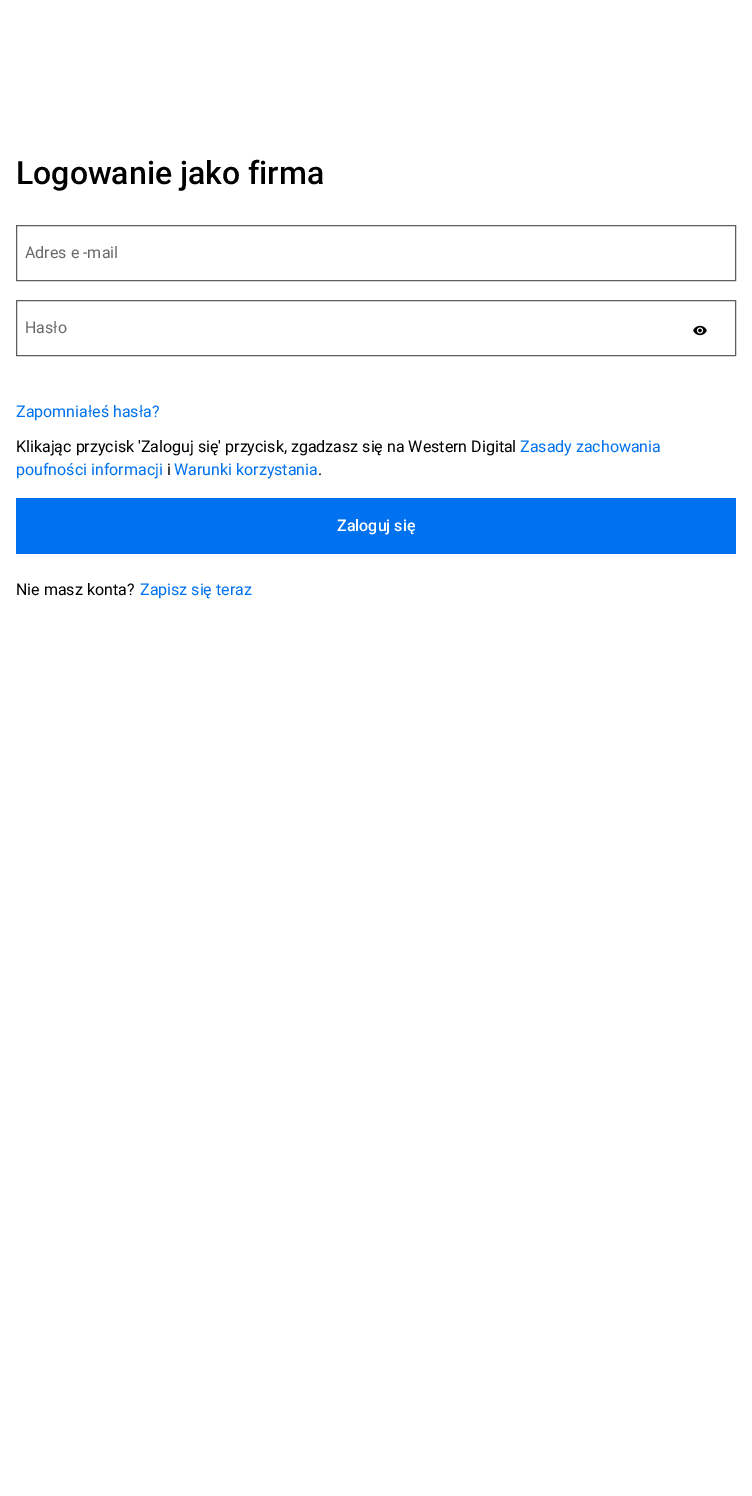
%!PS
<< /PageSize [752 1496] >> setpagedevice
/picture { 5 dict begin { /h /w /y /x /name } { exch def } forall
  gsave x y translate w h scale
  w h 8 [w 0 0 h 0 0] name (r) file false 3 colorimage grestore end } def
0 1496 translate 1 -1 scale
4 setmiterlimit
1 setgray
0 0 752 1496 rectfill
/Roboto-Medium [32 0 0 -32 0 0] selectfont
0 setgray
16 184 moveto (Logowanie jako firma) show
0.376 0.369 0.361 setrgbcolor
16.5 225.5 719 55 rectstroke
/Roboto-Regular [16 0 0 -16 0 0] selectfont
0.416 setgray
25 258 moveto (Adres e -mail) show
0.376 0.369 0.361 setrgbcolor
16.5 300.5 719 55 rectstroke
0.416 setgray
25 333 moveto (Hasło) show
(img1.rgb) 693 325 14 11 picture
0 0.447 0.937 setrgbcolor
16 417 moveto (Zapomniałeś hasła?) show
0 setgray
16 452 moveto (Klikając przycisk 'Zaloguj się' przycisk, zgadzasz się na Western Digital) show
0 0.447 0.937 setrgbcolor
520 452 moveto (Zasady zachowania) show
16 475 moveto (poufności informacji) show
0 setgray
167 475 moveto (i) show
0 0.447 0.937 setrgbcolor
174 475 moveto (Warunki korzystania) show
0 setgray
318 475 moveto (.) show
0 0.447 0.937 setrgbcolor
16 498 720 56 rectfill
/Roboto-Medium [16 0 0 -16 0 0] selectfont
1 setgray
337 531 moveto (Zaloguj się) show
/Roboto-Regular [16 0 0 -16 0 0] selectfont
0 setgray
16 595 moveto (Nie masz konta?) show
0 0.447 0.937 setrgbcolor
140 595 moveto (Zapisz się teraz) show
showpage
